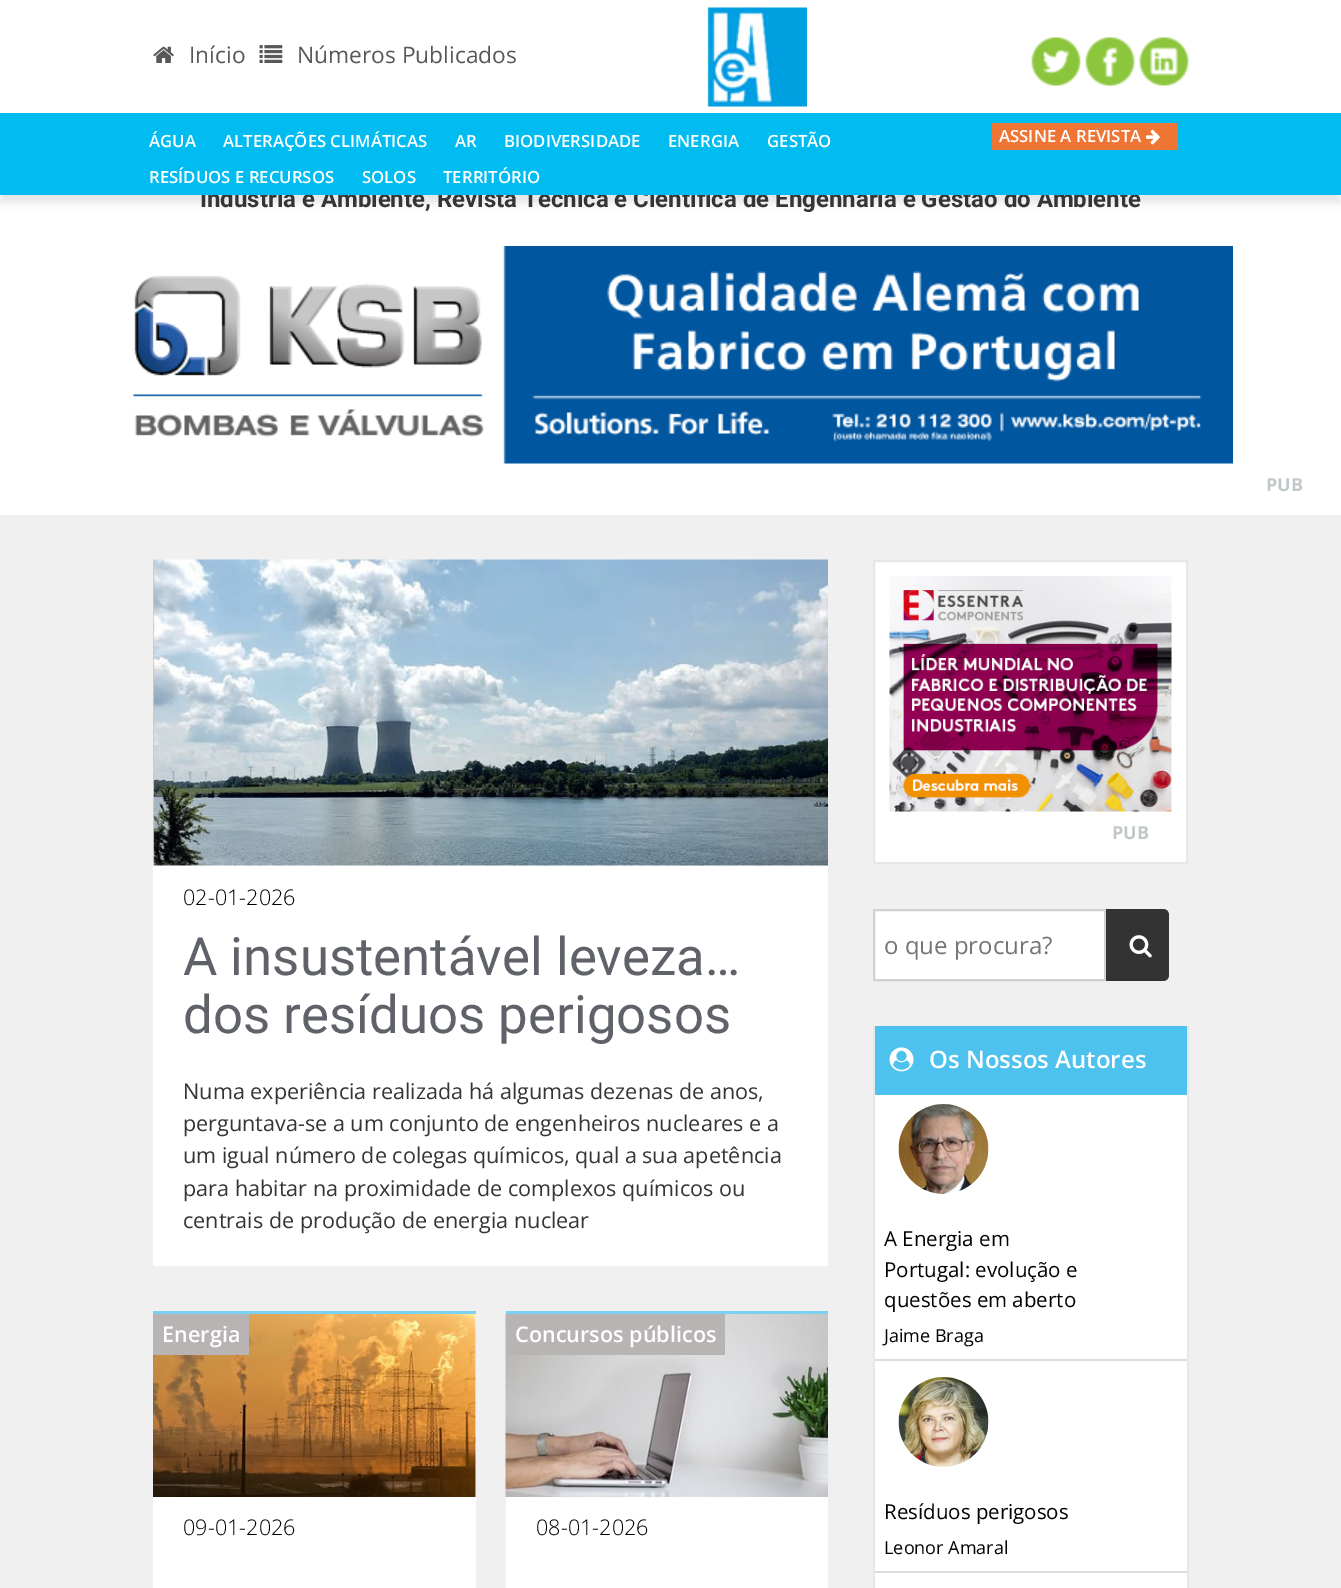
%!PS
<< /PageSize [1341 1588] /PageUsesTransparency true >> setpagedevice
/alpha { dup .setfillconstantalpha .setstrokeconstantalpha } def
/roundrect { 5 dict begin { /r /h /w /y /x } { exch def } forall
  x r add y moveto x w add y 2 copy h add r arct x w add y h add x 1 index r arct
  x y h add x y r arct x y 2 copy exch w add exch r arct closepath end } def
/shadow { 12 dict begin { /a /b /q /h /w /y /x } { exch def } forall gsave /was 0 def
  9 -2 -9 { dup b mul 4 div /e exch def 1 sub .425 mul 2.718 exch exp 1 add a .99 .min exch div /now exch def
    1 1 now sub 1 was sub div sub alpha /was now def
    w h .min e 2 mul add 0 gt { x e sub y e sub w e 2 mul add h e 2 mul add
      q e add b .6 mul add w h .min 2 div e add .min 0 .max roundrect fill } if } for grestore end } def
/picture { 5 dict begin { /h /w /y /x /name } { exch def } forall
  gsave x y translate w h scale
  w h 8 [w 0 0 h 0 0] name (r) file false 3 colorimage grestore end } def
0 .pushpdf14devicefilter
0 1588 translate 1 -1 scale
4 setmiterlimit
0.941 setgray
0 0 1341 1588 rectfill
1 setgray
0 0 1341 113 rectfill
(img1.rgb) 153 46 21 17 picture
/OpenSans-Regular [22.75 0 0 -22.75 0 0] selectfont
0.345 0.345 0.353 setrgbcolor
189 63 moveto (Início) show
(img2.rgb) 259 45 24 18 picture
297 63 moveto (Números Publicados) show
(img3.rgb) 707 7 100 100 picture
(img4.rgb) 1031 37 50 49 picture
(img5.rgb) 1085 37 50 49 picture
(img6.rgb) 1139 37 50 49 picture
1 setgray
0 195 1341 320 rectfill
0 setgray
0 120 1341 83 0 4 0.1 shadow
/Roboto-Bold [24 0 0 -24 0 0] selectfont
0.2 0.208 0.216 setrgbcolor
200 207 moveto (Indústria e Ambiente, Revista Técnica e Científica de Engenharia e Gestão do Ambiente) show
0 0.737 0.941 setrgbcolor
0 113 1341 82 rectfill
/OpenSans-SemiBold [16.75 0 0 -16.75 0 0] selectfont
1 setgray
149 147 moveto (ÁGUA) show
223 147 moveto (ALTERAÇÕES CLIMÁTICAS) show
455 147 moveto (AR) show
504 147 moveto (BIODIVERSIDADE) show
668 147 moveto (ENERGIA) show
767 147 moveto (GESTÃO) show
149 183 moveto (RESÍDUOS E RECURSOS) show
362 183 moveto (SOLOS) show
443 183 moveto (TERRITÓRIO) show
0.937 0.459 0.208 setrgbcolor
992 123 186 27 rectfill
1 setgray
999 142 moveto (ASSINE A REVISTA) show
(img7.rgb) 1146 129 14 16 picture
(img8.rgb) 133 246 1100 218 picture
/OpenSans-Bold [18 0 0 -18 0 0] selectfont
0.757 0.784 0.792 setrgbcolor
1266 491 moveto (PUB) show
1 setgray
153 865 675 401 rectfill
(img9.rgb) 153 559 675 307 picture
/OpenSans-Light [21.6 0 0 -21.6 0 0] selectfont
0 setgray
183 905 moveto (02-01-2026) show
/Roboto-Regular [52.75 0 0 -52.75 0 0] selectfont
0.376 0.384 0.416 setrgbcolor
183 975 moveto (A insustentável leveza…) show
183 1033 moveto (dos resíduos perigosos) show
/OpenSans-Regular [21.6 0 0 -21.6 0 0] selectfont
0.2 0.208 0.216 setrgbcolor
183 1099 moveto (Numa experiência realizada há algumas dezenas de anos,) show
183 1131 moveto (perguntava-se a um conjunto de engenheiros nucleares e a) show
183 1163 moveto (um igual número de colegas químicos, qual a sua apetência) show
183 1196 moveto (para habitar na proximidade de complexos químicos ou) show
183 1228 moveto (centrais de produção de energia nuclear) show
1 setgray
153 1314 323 274 rectfill
0.475 0.82 0.953 setrgbcolor
153 1311 323 3 rectfill
(img10.rgb) 153 1314 323 183 picture
0.722 0.706 0.706 setrgbcolor
153 1314 96 41 rectfill
/OpenSans-SemiBold [21.6 0 0 -21.6 0 0] selectfont
1 setgray
162 1342 moveto (Energia) show
/OpenSans-Light [21.6 0 0 -21.6 0 0] selectfont
0 setgray
183 1535 moveto (09-01-2026) show
1 setgray
506 1497 322 91 rectfill
0.475 0.82 0.953 setrgbcolor
506 1311 322 3 rectfill
(img11.rgb) 505 1314 323 183 picture
0.722 0.706 0.706 setrgbcolor
506 1314 219 41 rectfill
/OpenSans-SemiBold [21.6 0 0 -21.6 0 0] selectfont
1 setgray
515 1342 moveto (Concursos públicos) show
/OpenSans-Light [21.6 0 0 -21.6 0 0] selectfont
0 setgray
536 1535 moveto (08-01-2026) show
1 setgray
newpath 874 561 moveto 1187 561 lineto 1187 863 lineto 874 863 lineto closepath gsave fill grestore
0.906 setgray
2 setlinewidth
stroke
(img12.rgb) 889 576 283 236 picture
/OpenSans-Bold [18 0 0 -18 0 0] selectfont
0.757 0.784 0.792 setrgbcolor
1112 839 moveto (PUB) show
1 setgray
newpath 874 910 moveto 1105 910 lineto 1105 980 lineto 874 980 lineto closepath gsave fill grestore
0.82 setgray
stroke
/OpenSans-Regular [24 0 0 -24 0 0] selectfont
0.459 setgray
884 954 moveto (o que procura?) show
0.2 setgray
newpath 1106 909 moveto 1163 909 lineto 1166.5 909 1169 911.5 1169 915 curveto 1169 975 lineto 1169 978.5 1166.5 981 1163 981 curveto 1106 981 lineto closepath fill
(img13.rgb) 1129 935 23 23 picture
1 setgray
875 1095 312 493 rectfill
0.906 setgray
1187 1026 2 562 rectfill
873 1026 2 562 rectfill
0.306 0.761 0.937 setrgbcolor
875 1026 312 69 rectfill
(img14.rgb) 889 1047 25 25 picture
/OpenSans-SemiBold [24 0 0 -24 0 0] selectfont
1 setgray
929 1068 moveto (Os Nossos Autores) show
0.867 setgray
875 1359 312 2 rectfill
(img15.rgb) 898 1104 91 90 picture
/OpenSans-Regular [20.5 0 0 -20.5 0 0] selectfont
0 setgray
884 1246 moveto (A Energia em) show
884 1277 moveto (Portugal: evolução e) show
884 1307 moveto (questões em aberto) show
/OpenSans-Regular [18 0 0 -18 0 0] selectfont
884 1342 moveto (Jaime Braga) show
0.867 setgray
875 1571 312 2 rectfill
(img16.rgb) 898 1377 91 90 picture
/OpenSans-Regular [20.5 0 0 -20.5 0 0] selectfont
0 setgray
884 1519 moveto (Resíduos perigosos) show
/OpenSans-Regular [18 0 0 -18 0 0] selectfont
884 1554 moveto (Leonor Amaral) show
.poppdf14devicefilter showpage
